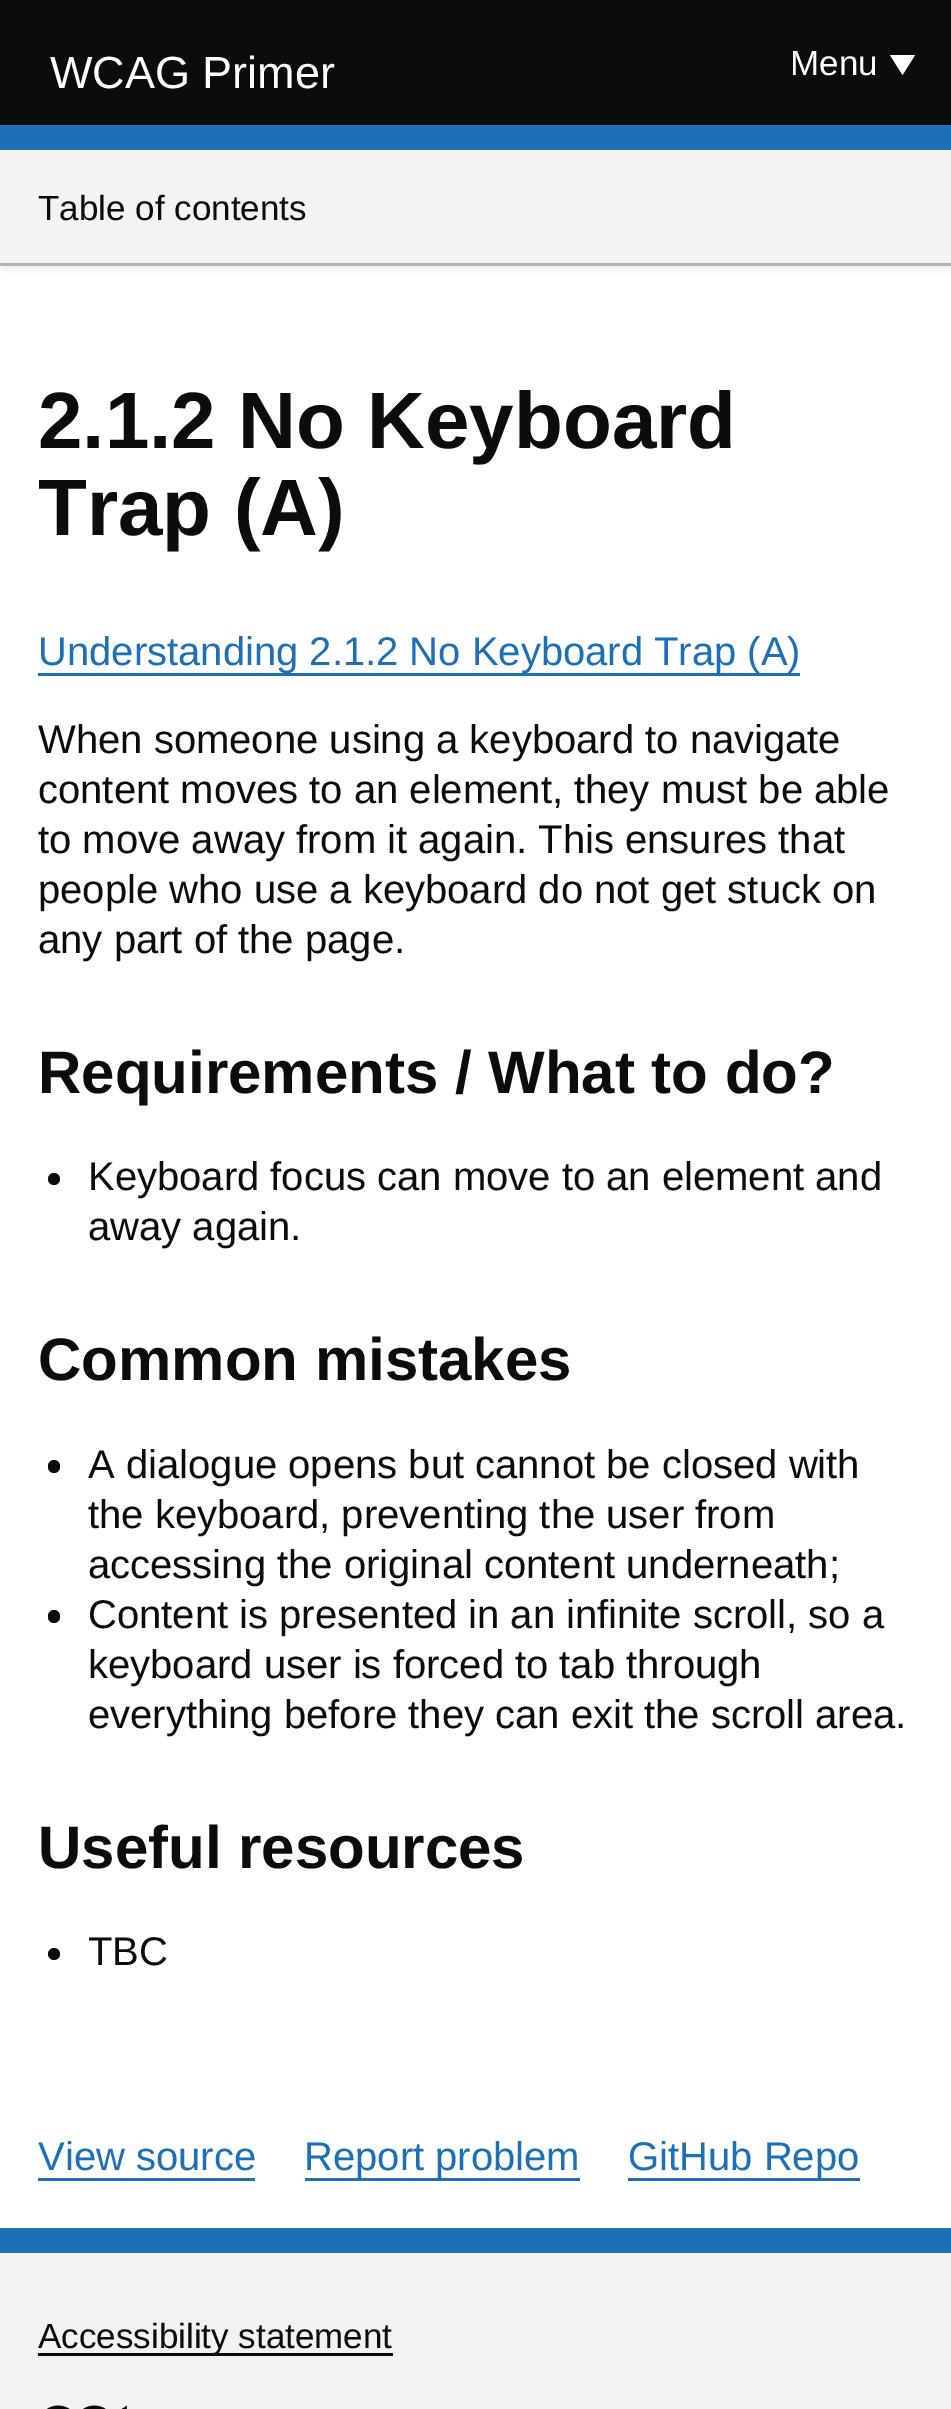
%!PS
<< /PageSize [951 2409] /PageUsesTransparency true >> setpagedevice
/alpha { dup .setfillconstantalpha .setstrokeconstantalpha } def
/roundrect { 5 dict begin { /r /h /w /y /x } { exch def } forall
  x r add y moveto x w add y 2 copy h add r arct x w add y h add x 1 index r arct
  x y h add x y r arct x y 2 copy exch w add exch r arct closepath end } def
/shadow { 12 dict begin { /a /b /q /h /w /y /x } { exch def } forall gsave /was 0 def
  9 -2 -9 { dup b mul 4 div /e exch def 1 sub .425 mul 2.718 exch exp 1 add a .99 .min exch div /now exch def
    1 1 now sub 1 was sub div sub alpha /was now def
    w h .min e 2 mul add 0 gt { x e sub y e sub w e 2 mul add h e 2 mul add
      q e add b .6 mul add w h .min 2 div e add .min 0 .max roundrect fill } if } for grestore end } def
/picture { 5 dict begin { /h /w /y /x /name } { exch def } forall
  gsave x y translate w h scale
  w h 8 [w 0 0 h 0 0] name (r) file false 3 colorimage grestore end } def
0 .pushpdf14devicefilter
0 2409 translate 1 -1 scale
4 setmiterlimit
1 setgray
0 0 951 2409 rectfill
0.043 0.047 0.047 setrgbcolor
0 0 951 125 rectfill
0.114 0.439 0.722 setrgbcolor
0 125 951 25 rectfill
/LiberationSans-Regular [45 0 0 -45 0 0] selectfont
1 setgray
50 88 moveto (WCAG Primer) show
/LiberationSans-Regular [35 0 0 -35 0 0] selectfont
790 75 moveto (Menu) show
newpath 890 55 moveto 915 55 lineto 902.5 75 lineto closepath fill
0 setgray
3 153 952 115 0 4 0.1 shadow
0.957 0.953 0.949 setrgbcolor
0 150 951 113 rectfill
0.694 0.706 0.714 setrgbcolor
0 263 951 3 rectfill
0.043 0.047 0.047 setrgbcolor
38 220 moveto (Table of contents) show
/LiberationSans-Bold [80 0 0 -80 0 0] selectfont
38 448 moveto (2.1.2 No Keyboard) show
38 535 moveto (Trap \(A\)) show
0.114 0.439 0.722 setrgbcolor
38 673 762 3 rectfill
/LiberationSans-Regular [40 0 0 -40 0 0] selectfont
38 665 moveto (Understanding 2.1.2 No Keyboard Trap \(A\)) show
0.043 0.047 0.047 setrgbcolor
38 753 moveto (When someone using a keyboard to navigate) show
38 803 moveto (content moves to an element, they must be able) show
38 853 moveto (to move away from it again. This ensures that) show
38 903 moveto (people who use a keyboard do not get stuck on) show
38 953 moveto (any part of the page.) show
/LiberationSans-Bold [60 0 0 -60 0 0] selectfont
38 1093 moveto (Requirements / What to do?) show
newpath 54 1179 6 0 360 arc closepath fill
/LiberationSans-Regular [40 0 0 -40 0 0] selectfont
88 1190 moveto (Keyboard focus can move to an element and) show
88 1240 moveto (away again.) show
/LiberationSans-Bold [60 0 0 -60 0 0] selectfont
38 1380 moveto (Common mistakes) show
48 1460 12 13 6 roundrect fill
/LiberationSans-Regular [40 0 0 -40 0 0] selectfont
88 1478 moveto (A dialogue opens but cannot be closed with) show
88 1528 moveto (the keyboard, preventing the user from) show
88 1578 moveto (accessing the original content underneath;) show
48 1610 12 13 6 roundrect fill
88 1628 moveto (Content is presented in an infinite scroll, so a) show
88 1678 moveto (keyboard user is forced to tab through) show
88 1728 moveto (everything before they can exit the scroll area.) show
/LiberationSans-Bold [60 0 0 -60 0 0] selectfont
38 1868 moveto (Useful resources) show
newpath 54 1954 6 0 360 arc closepath fill
/LiberationSans-Regular [40 0 0 -40 0 0] selectfont
88 1965 moveto (TBC) show
0.114 0.439 0.722 setrgbcolor
38 2170 moveto (View source) show
38 2178 217 3 rectfill
305 2178 275 3 rectfill
304 2170 moveto (Report problem) show
628 2178 232 3 rectfill
628 2170 moveto (GitHub Repo) show
0.953 0.949 0.945 setrgbcolor
0 2253 951 156 rectfill
0.114 0.439 0.722 setrgbcolor
0 2228 951 25 rectfill
0.043 0.047 0.047 setrgbcolor
38 2353 355 3 rectfill
/LiberationSans-Regular [35 0 0 -35 0 0] selectfont
38 2348 moveto (Accessibility statement) show
(img1.rgb) 46 2405 81 4 picture
.poppdf14devicefilter showpage
